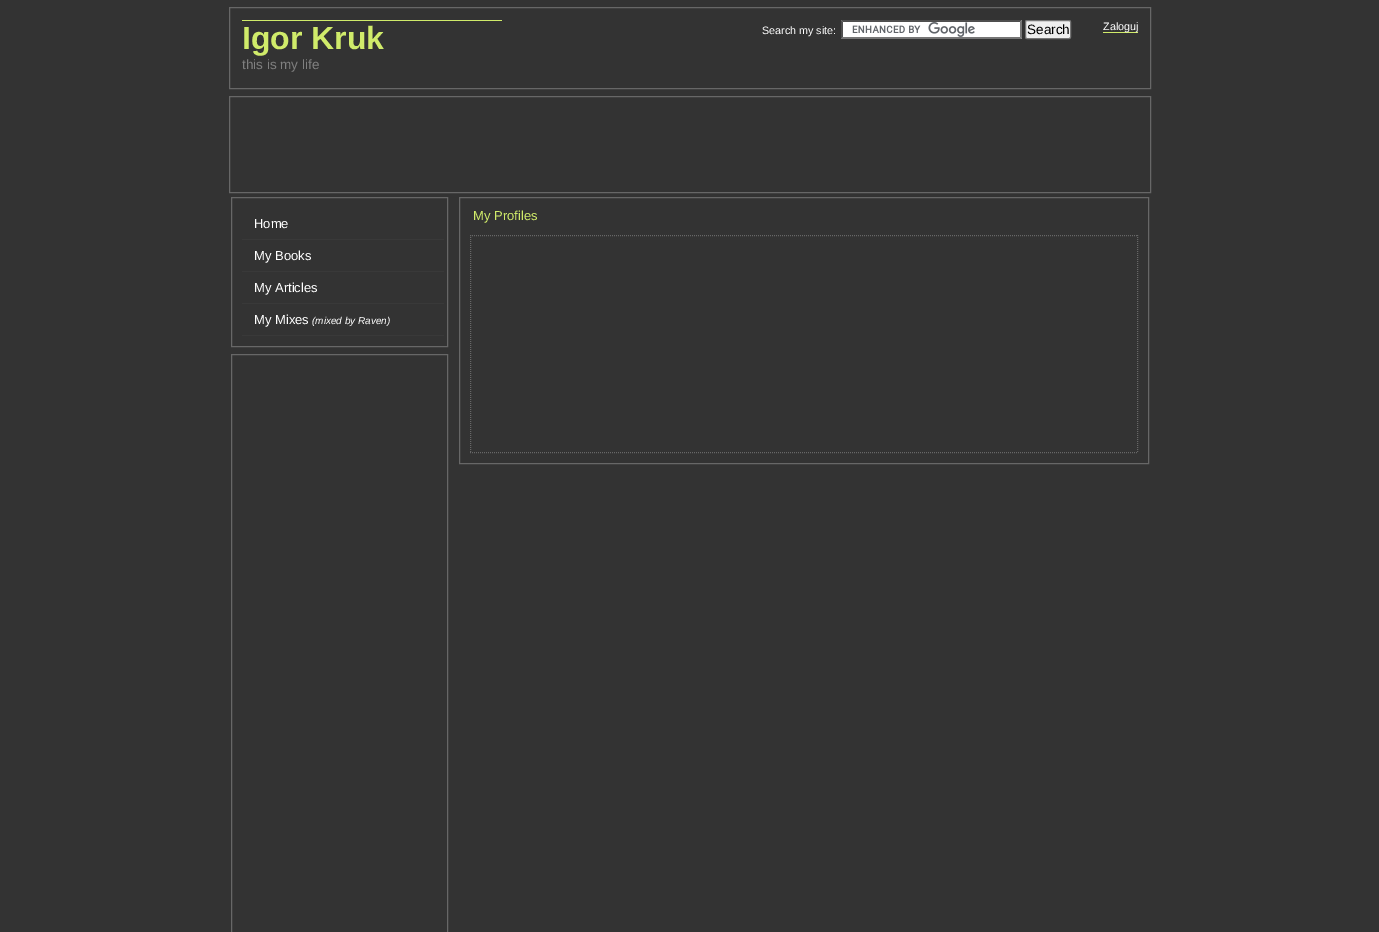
%!PS
<< /PageSize [1379 932] >> setpagedevice
/roundrect { 5 dict begin { /r /h /w /y /x } { exch def } forall
  x r add y moveto x w add y 2 copy h add r arct x w add y h add x 1 index r arct
  x y h add x y r arct x y 2 copy exch w add exch r arct closepath end } def
/picture { 5 dict begin { /h /w /y /x /name } { exch def } forall
  gsave x y translate w h scale
  w h 8 [w 0 0 h 0 0] name (r) file false 3 colorimage grestore end } def
0 932 translate 1 -1 scale
4 setmiterlimit
0.2 setgray
0 0 1379 932 rectfill
0.404 setgray
229.5 7.5 921 81 rectstroke
0.816 0.922 0.416 setrgbcolor
242 20 260 1 rectfill
/LiberationSans-Bold [32 0 0 -32 0 0] selectfont
242 49 moveto (Igor Kruk) show
/LiberationSans-Regular [13.5 0 0 -13.5 0 0] selectfont
0.502 setgray
242 69 moveto (this is my life) show
/LiberationSans-Regular [10.75 0 0 -10.75 0 0] selectfont
1 setgray
762 34 moveto (Search my site:) show
841 20 181 19 rectfill
(img1.rgb) 852 22 123 15 picture
0.31 setgray
newpath 841 20 moveto 1022 20 lineto 1020 22 lineto 843 22 lineto closepath fill
0.463 setgray
newpath 1022 20 moveto 1022 39 lineto 1020 37 lineto 1020 22 lineto closepath fill
newpath 1022 39 moveto 841 39 lineto 843 37 lineto 1020 37 lineto closepath fill
0.31 setgray
newpath 841 39 moveto 841 20 lineto 843 22 lineto 843 37 lineto closepath fill
0.937 setgray
1025.5 20.5 45 18 1.5 roundrect gsave fill grestore
0.463 setgray
stroke
/LiberationSans-Regular [13.5 0 0 -13.5 0 0] selectfont
0 setgray
1027 34 moveto (Search) show
0.816 0.922 0.416 setrgbcolor
1103 32 35 1 rectfill
/LiberationSans-Regular [10.75 0 0 -10.75 0 0] selectfont
1 setgray
1103 30 moveto (Zaloguj) show
0.404 setgray
229.5 96.5 921 96 rectstroke
459.5 197.5 689 266 rectstroke
/LiberationSans-Regular [13 0 0 -13 0 0] selectfont
0.816 0.922 0.416 setrgbcolor
473 220 moveto (My Profiles) show
0.404 setgray
[1 1] 0 setdash
newpath 470 235.5 moveto 1138 235.5 lineto stroke
newpath 1137.5 235 moveto 1137.5 453 lineto stroke
newpath 470 452.5 moveto 1138 452.5 lineto stroke
newpath 470.5 235 moveto 470.5 453 lineto stroke
[] 0 setdash
231.5 197.5 216 149 rectstroke
0.224 setgray
242 239 202 1 rectfill
1 setgray
254 228 moveto (Home) show
0.224 setgray
242 271 202 1 rectfill
1 setgray
254 260 moveto (My Books) show
0.224 setgray
242 303 202 1 rectfill
1 setgray
254 292 moveto (My Articles) show
0.224 setgray
242 335 202 1 rectfill
1 setgray
254 324 moveto (My Mixes) show
/LiberationSans-Italic [10 0 0 -10 0 0] selectfont
312 324 moveto (\(mixed by Raven\)) show
0.404 setgray
231.5 354.5 216 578 rectstroke
showpage
